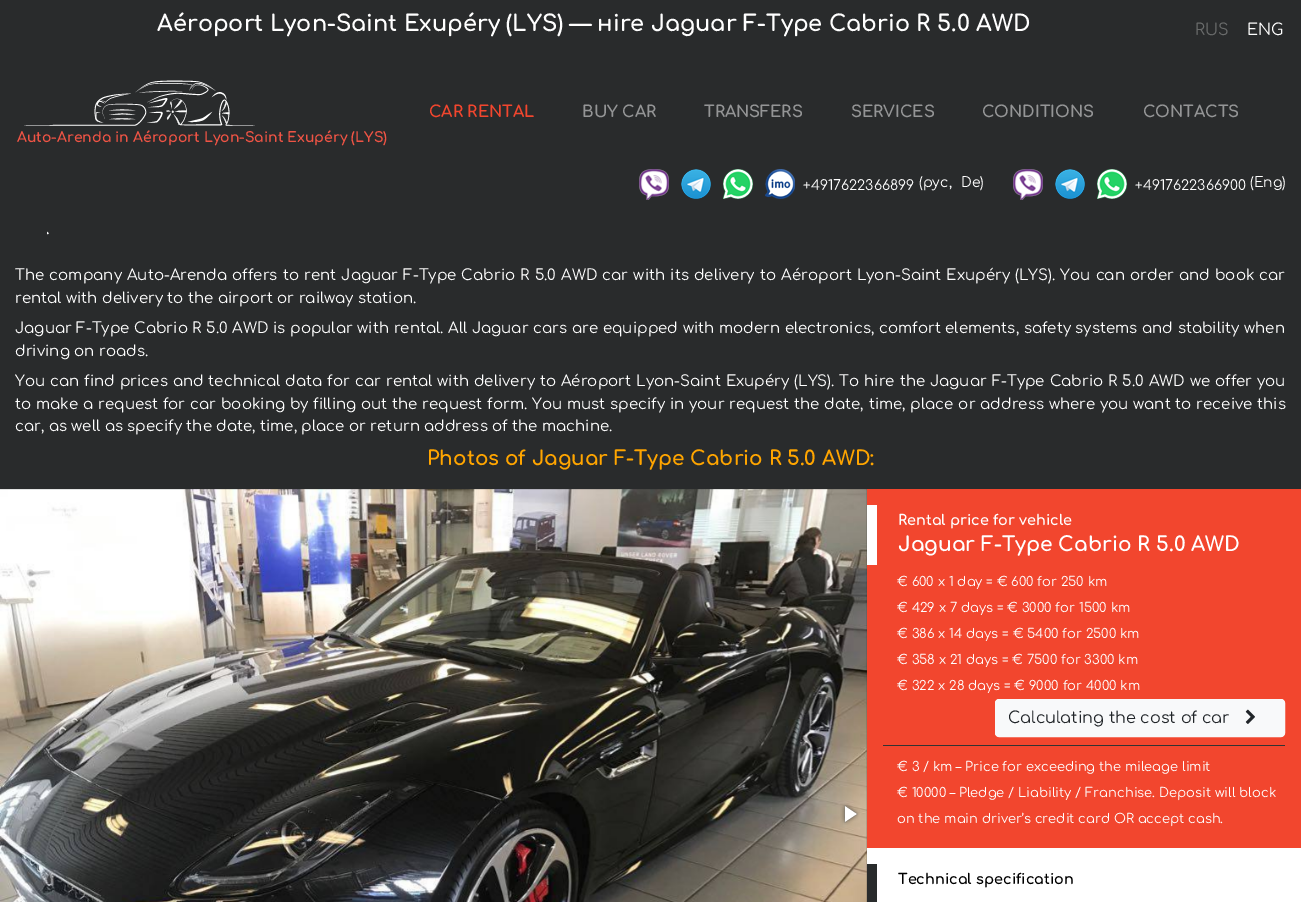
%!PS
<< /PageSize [1301 902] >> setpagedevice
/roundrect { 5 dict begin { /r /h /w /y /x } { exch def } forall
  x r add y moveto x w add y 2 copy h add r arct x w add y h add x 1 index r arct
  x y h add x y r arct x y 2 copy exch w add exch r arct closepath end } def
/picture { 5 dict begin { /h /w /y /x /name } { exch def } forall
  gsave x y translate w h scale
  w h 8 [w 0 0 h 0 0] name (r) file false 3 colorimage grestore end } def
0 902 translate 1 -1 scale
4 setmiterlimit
0.161 0.169 0.173 setrgbcolor
0 0 1301 902 rectfill
/Comfortaa-Bold [22.4 0 0 -22.4 0 0] selectfont
1 setgray
157 31 moveto (Aéroport Lyon-Saint Exupéry \(LYS\) — нire Jaguar F-Type Cabrio R 5.0 AWD) show
/Comfortaa-Regular [16 0 0 -16 0 0] selectfont
0.412 0.42 0.42 setrgbcolor
1195 35 moveto (RUS) show
1 setgray
1247 35 moveto (ENG) show
/Comfortaa-Bold [16 0 0 -16 0 0] selectfont
0.949 0.275 0.18 setrgbcolor
429 117 moveto (CAR RENTAL) show
0.58 0.584 0.588 setrgbcolor
582 117 moveto (BUY CAR) show
704 117 moveto (TRANSFERS) show
851 117 moveto (SERVICES) show
982 117 moveto (CONDITIONS) show
1143 117 moveto (CONTACTS) show
(img1.rgb) 24 80 231 46 picture
/Comfortaa-Bold [14 0 0 -14 0 0] selectfont
0.937 0.329 0.271 setrgbcolor
17 142 moveto (Auto-Arenda in Aéroport Lyon-Saint Exupéry \(LYS\)) show
(img2.rgb) 639 169 30 31 picture
(img3.rgb) 681 169 30 30 picture
(img4.rgb) 723 169 30 30 picture
(img5.rgb) 765 169 30 30 picture
/Comfortaa-Regular [14 0 0 -14 0 0] selectfont
1 setgray
803 190 moveto (+4917622366899) show
919 187 moveto (\(рус,) show
961 187 moveto (De\)) show
(img2.rgb) 1013 169 30 31 picture
(img3.rgb) 1055 169 30 30 picture
(img4.rgb) 1097 169 30 30 picture
1135 190 moveto (+4917622366900) show
1250 187 moveto (\(Eng\)) show
(img6.rgb) 47 231 2 4 picture
/Comfortaa-Regular [15 0 0 -15 0 0] selectfont
15 280 moveto 0.75 0 32 (The company Auto-Arenda offers to rent Jaguar F-Type Cabrio R 5.0 AWD car with its delivery to Aéroport Lyon-Saint Exupéry \(LYS\). You can order and book car) widthshow
15 303 moveto (rental with delivery to the airport or railway station.) show
15 333 moveto 0.25 0 32 (Jaguar F-Type Cabrio R 5.0 AWD is popular with rental. All Jaguar cars are equipped with modern electronics, comfort elements, safety systems and stability when) widthshow
15 356 moveto (driving on roads.) show
15 386 moveto 0.55 0 32 (You can find prices and technical data for car rental with delivery to Aéroport Lyon-Saint Exupéry \(LYS\). To hire the Jaguar F-Type Cabrio R 5.0 AWD we offer you) widthshow
15 409 moveto 0.4 0 32 (to make a request for car booking by filling out the request form. You must specify in your request the date, time, place or address where you want to receive this) widthshow
15 431 moveto (car, as well as specify the date, time, place or return address of the machine.) show
/Comfortaa-Bold [20 0 0 -20 0 0] selectfont
1 0.647 0 setrgbcolor
427 465 moveto (Photos of Jaguar F-Type Cabrio R 5.0 AWD:) show
(img7.rgb) 0 489 867 413 picture
(img8.rgb) 9 807 14 15 picture
(img9.rgb) 840 803 20 22 picture
0.949 0.275 0.18 setrgbcolor
867 489 434 359 rectfill
1 setgray
867 505 10 60 rectfill
/Comfortaa-Bold [14.4 0 0 -14.4 0 0] selectfont
898 525 moveto (Rental price for vehicle) show
/Comfortaa-Bold [20.2 0 0 -20.2 0 0] selectfont
898 551 moveto (Jaguar F-Type Cabrio R 5.0 AWD) show
/Comfortaa-Regular [13 0 0 -13 0 0] selectfont
897 586 moveto (€ 600 x 1 day = € 600 for 250 km) show
897 612 moveto (€ 429 x 7 days = € 3000 for 1500 km) show
897 638 moveto (€ 386 x 14 days = € 5400 for 2500 km) show
897 664 moveto (€ 358 x 21 days = € 7500 for 3300 km) show
897 690 moveto (€ 322 x 28 days = € 9000 for 4000 km) show
0.973 0.976 0.98 setrgbcolor
995.5 699.5 289 37 3.5 roundrect gsave fill grestore
stroke
/Comfortaa-Regular [16 0 0 -16 0 0] selectfont
0.129 0.145 0.161 setrgbcolor
1008 723 moveto (Calculating the cost of car) show
(img10.rgb) 1245 709 10 15 picture
0.2 setgray
883 745 402 1 rectfill
/Comfortaa-Regular [13 0 0 -13 0 0] selectfont
1 setgray
897 771 moveto (€ 3 / km – Price for exceeding the mileage limit) show
897 797 moveto (€ 10000 – Pledge / Liability / Franchise. Deposit will block) show
897 823 moveto (on the main driver’s credit card OR accept cash.) show
867 848 434 54 rectfill
0.161 0.169 0.173 setrgbcolor
867 864 10 38 rectfill
/Comfortaa-Bold [14.4 0 0 -14.4 0 0] selectfont
0 setgray
898 884 moveto (Technical specification) show
showpage
